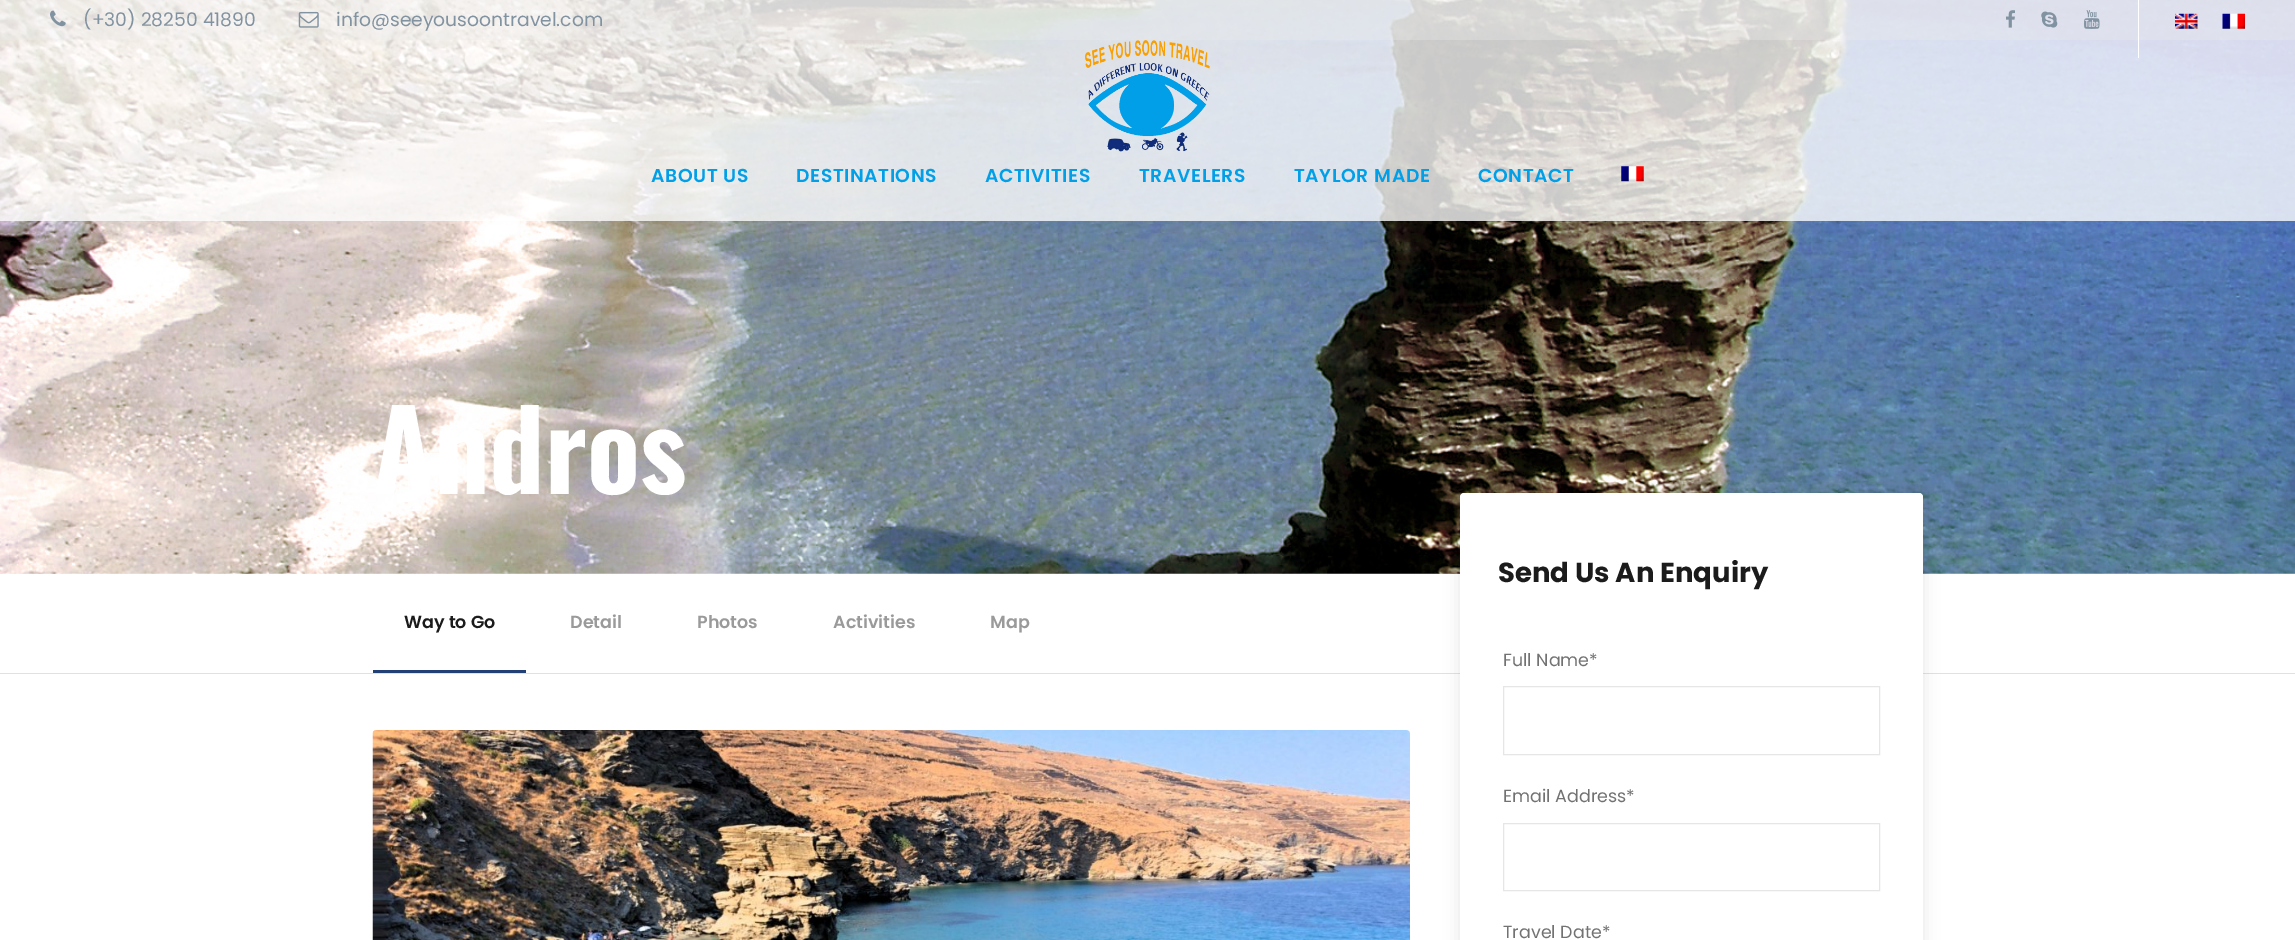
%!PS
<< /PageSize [2295 940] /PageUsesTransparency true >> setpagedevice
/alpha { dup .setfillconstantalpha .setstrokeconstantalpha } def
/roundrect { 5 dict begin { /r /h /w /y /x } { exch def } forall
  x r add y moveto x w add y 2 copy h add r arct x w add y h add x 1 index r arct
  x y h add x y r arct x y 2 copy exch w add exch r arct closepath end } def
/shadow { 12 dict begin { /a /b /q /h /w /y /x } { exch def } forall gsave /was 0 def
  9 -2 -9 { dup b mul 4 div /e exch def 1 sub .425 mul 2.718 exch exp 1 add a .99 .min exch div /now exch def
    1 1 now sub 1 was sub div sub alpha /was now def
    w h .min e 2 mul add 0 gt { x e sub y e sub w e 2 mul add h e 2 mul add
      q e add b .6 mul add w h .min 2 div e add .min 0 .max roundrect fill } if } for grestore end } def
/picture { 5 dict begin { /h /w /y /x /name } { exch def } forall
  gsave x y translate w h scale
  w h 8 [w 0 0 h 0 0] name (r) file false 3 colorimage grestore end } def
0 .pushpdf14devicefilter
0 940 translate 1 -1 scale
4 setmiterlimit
1 setgray
0 0 2295 940 rectfill
(img10.rgb) 0 0 2295 574 picture
0.86 alpha
0.969 setgray
0 0 2295 40 rectfill
1 alpha
(img1.rgb) 50 10 16 17 picture
/Poppins-Regular [18.75 0 0 -18.75 0 0] selectfont
0.506 0.573 0.627 setrgbcolor
83 26 moveto (\(+30\) 28250 41890) show
(img2.rgb) 298 11 21 17 picture
336 26 moveto (info@seeyousoontravel.com) show
(img3.rgb) 2006 10 9 18 picture
(img4.rgb) 2041 11 17 17 picture
(img5.rgb) 2084 10 16 19 picture
1 setgray
2138 0 1 58 rectfill
(img6.rgb) 2175 13 23 16 picture
(img7.rgb) 2222 13 23 16 picture
0.79 alpha
0 40 2295 181 rectfill
1 alpha
(img8.rgb) 1085 40 125 112 picture
/Poppins-SemiBold [18.75 0 0 -18.75 0 0] selectfont
0.004 0.624 0.91 setrgbcolor
651 182 moveto 0.6 0 (ABOUT US) ashow
796 182 moveto 0.6 0 (DESTINATIONS) ashow
985 182 moveto 0.6 0 (ACTIVITIES) ashow
1139 182 moveto 0.6 0 (TRAVELERS) ashow
1294 182 moveto 0.6 0 (TAYLOR MADE) ashow
1478 182 moveto 0.6 0 (CONTACT) ashow
(img9.rgb) 1621 166 23 16 picture
/Oswald-Bold [110 0 0 -110 0 0] selectfont
1 setgray
373 494 moveto (Andros) show
0.882 setgray
0 673 2295 1 rectfill
/Poppins-SemiBold [17.5 0 0 -17.5 0 0] selectfont
0.106 setgray
404 628 moveto (Way to Go) show
0.604 setgray
570 628 moveto (Detail) show
697 628 moveto (Photos) show
833 628 moveto (Activities) show
990 628 moveto (Map) show
0.137 0.251 0.463 setrgbcolor
373 670 153 3 rectfill
(img11.rgb) 372 730 1038 210 picture
0 setgray
1460 494 463 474 4 8 0.1 shadow
1 setgray
1460 493 463 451 4 roundrect fill
/Poppins-Bold [27.5 0 0 -27.5 0 0] selectfont
0.106 setgray
1498 582 moveto (Send Us An Enquiry) show
/Poppins-Regular [17.5 0 0 -17.5 0 0] selectfont
0.447 setgray
1503 666 moveto (Full Name*) show
0.902 setgray
1503.5 686.5 376 68 rectstroke
0.447 setgray
1503 802 moveto (Email Address*) show
0.902 setgray
1503.5 823.5 376 67 rectstroke
0.447 setgray
1503 938 moveto (Travel Date*) show
.poppdf14devicefilter showpage
